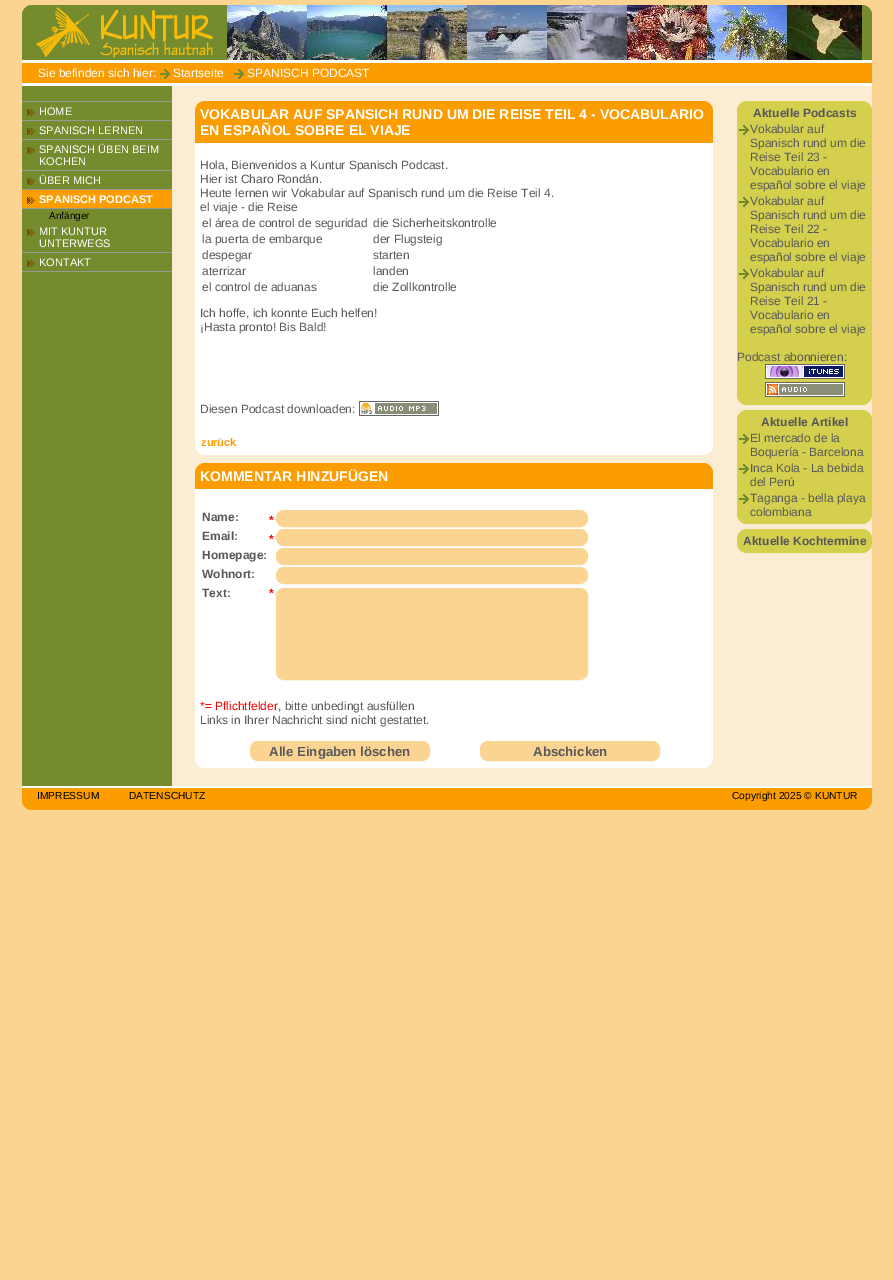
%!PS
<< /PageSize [894 1280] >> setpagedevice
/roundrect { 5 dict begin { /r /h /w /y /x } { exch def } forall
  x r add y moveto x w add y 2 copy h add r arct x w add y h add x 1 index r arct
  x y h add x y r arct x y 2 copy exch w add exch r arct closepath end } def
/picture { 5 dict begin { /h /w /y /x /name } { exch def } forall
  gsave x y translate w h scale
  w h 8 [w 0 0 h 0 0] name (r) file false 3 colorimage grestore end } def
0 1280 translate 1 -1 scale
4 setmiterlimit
0.984 0.831 0.573 setrgbcolor
0 0 894 1280 rectfill
0.459 0.549 0.18 setrgbcolor
newpath 32 5 moveto 862 5 lineto 867.5 5 872 9.5 872 15 curveto 872 86 lineto 22 86 lineto 22 15 lineto 22 9.5 26.5 5 32 5 curveto closepath fill
(img1.rgb) 36 7 177 51 picture
(img2.rgb) 227 5 635 55 picture
0.984 0.616 0 setrgbcolor
22 63 850 20 rectfill
1 setgray
22 60 850 3 rectfill
22 83 850 3 rectfill
/LiberationSans-Regular [12 0 0 -12 0 0] selectfont
38 77 moveto (Sie befinden sich hier:) show
(img3.rgb) 160 69 10 10 picture
173 77 moveto (Startseite) show
(img3.rgb) 234 69 10 10 picture
247 77 moveto (SPANISCH PODCAST) show
0.459 0.549 0.18 setrgbcolor
22 86 150 700 rectfill
0.6 setgray
22 101 150 1 rectfill
(img4.rgb) 27 109 8 7 picture
22 120 150 1 rectfill
/LiberationSans-Regular [11 0 0 -11 0 0] selectfont
1 setgray
39 115 moveto (HOME) show
(img4.rgb) 27 128 8 7 picture
0.6 setgray
22 139 150 1 rectfill
1 setgray
39 134 moveto (SPANISCH LERNEN) show
(img4.rgb) 27 147 8 7 picture
0.6 setgray
22 170 150 1 rectfill
1 setgray
39 153 moveto (SPANISCH ÜBEN BEIM) show
39 165 moveto (KOCHEN) show
(img4.rgb) 27 178 8 7 picture
0.6 setgray
22 189 150 1 rectfill
1 setgray
39 184 moveto (ÜBER MICH) show
0.984 0.616 0 setrgbcolor
22 190 150 18 rectfill
(img5.rgb) 27 197 8 7 picture
0.6 setgray
22 208 150 1 rectfill
/LiberationSans-Bold [11 0 0 -11 0 0] selectfont
1 setgray
39 203 moveto (SPANISCH PODCAST) show
/LiberationSans-Regular [10 0 0 -10 0 0] selectfont
0 setgray
49 219 moveto (Anfänger) show
(img4.rgb) 27 229 8 7 picture
0.6 setgray
22 252 150 1 rectfill
/LiberationSans-Regular [11 0 0 -11 0 0] selectfont
1 setgray
39 235 moveto (MIT KUNTUR) show
39 247 moveto (UNTERWEGS) show
(img4.rgb) 27 260 8 7 picture
0.6 setgray
22 271 150 1 rectfill
1 setgray
39 266 moveto (KONTAKT) show
0.984 0.929 0.831 setrgbcolor
172 86 700 700 rectfill
0.984 0.616 0 setrgbcolor
newpath 205 101 moveto 703 101 lineto 708.5 101 713 105.5 713 111 curveto 713 143 lineto 195 143 lineto 195 111 lineto 195 105.5 199.5 101 205 101 curveto closepath fill
/LiberationSans-Bold [14 0 0 -14 0 0] selectfont
1 setgray
200 119 moveto (VOKABULAR AUF SPANSICH RUND UM DIE REISE TEIL 4 - VOCABULARIO) show
200 135 moveto (EN ESPAÑOL SOBRE EL VIAJE) show
newpath 195 143 moveto 713 143 lineto 713 445 lineto 713 450.5 708.5 455 703 455 curveto 205 455 lineto 199.5 455 195 450.5 195 445 curveto closepath fill
/LiberationSans-Regular [12 0 0 -12 0 0] selectfont
0.345 0.345 0.353 setrgbcolor
200 169 moveto (Hola, Bienvenidos a Kuntur Spanisch Podcast.) show
200 183 moveto (Hier ist Charo Rondán.) show
200 197 moveto (Heute lernen wir Vokabular auf Spanisch rund um die Reise Teil 4.) show
200 211 moveto (el viaje - die Reise) show
202 227 moveto (el área de control de seguridad) show
373 227 moveto (die Sicherheitskontrolle) show
202 243 moveto (la puerta de embarque) show
373 243 moveto (der Flugsteig) show
202 259 moveto (despegar) show
373 259 moveto (starten) show
202 275 moveto (aterrizar) show
373 275 moveto (landen) show
202 291 moveto (el control de aduanas) show
373 291 moveto (die Zollkontrolle) show
200 317 moveto (Ich hoffe, ich konnte Euch helfen!) show
200 331 moveto (¡Hasta pronto! Bis Bald!) show
200 413 moveto (Diesen Podcast downloaden:) show
(img6.rgb) 359 401 80 15 picture
/LiberationSans-Bold [11 0 0 -11 0 0] selectfont
0.984 0.616 0 setrgbcolor
201 446 moveto (zurück) show
newpath 205 463 moveto 703 463 lineto 708.5 463 713 467.5 713 473 curveto 713 489 lineto 195 489 lineto 195 473 lineto 195 467.5 199.5 463 205 463 curveto closepath fill
/LiberationSans-Bold [14 0 0 -14 0 0] selectfont
1 setgray
200 481 moveto (KOMMENTAR HINZUFÜGEN) show
newpath 195 489 moveto 713 489 lineto 713 758 lineto 713 763.5 708.5 768 703 768 curveto 205 768 lineto 199.5 768 195 763.5 195 758 curveto closepath fill
/LiberationSans-Bold [12 0 0 -12 0 0] selectfont
0.345 0.345 0.353 setrgbcolor
202 521 moveto (Name:) show
1 0 0 setrgbcolor
269 524 moveto (*) show
0.984 0.831 0.573 setrgbcolor
276.5 510.5 311 16 7.5 roundrect gsave fill grestore
stroke
0.345 0.345 0.353 setrgbcolor
202 540 moveto (Email:) show
1 0 0 setrgbcolor
269 543 moveto (*) show
0.984 0.831 0.573 setrgbcolor
276.5 529.5 311 16 7.5 roundrect gsave fill grestore
stroke
0.345 0.345 0.353 setrgbcolor
202 559 moveto (Homepage:) show
0.984 0.831 0.573 setrgbcolor
276.5 548.5 311 16 7.5 roundrect gsave fill grestore
stroke
0.345 0.345 0.353 setrgbcolor
202 578 moveto (Wohnort:) show
0.984 0.831 0.573 setrgbcolor
276.5 567.5 311 16 7.5 roundrect gsave fill grestore
stroke
0.345 0.345 0.353 setrgbcolor
202 597 moveto (Text:) show
1 0 0 setrgbcolor
269 597 moveto (*) show
0.984 0.831 0.573 setrgbcolor
276.5 588.5 311 91 7.5 roundrect gsave fill grestore
stroke
/LiberationSans-Regular [12 0 0 -12 0 0] selectfont
1 0 0 setrgbcolor
200 710 moveto (*= Pflichtfelder) show
0.345 0.345 0.353 setrgbcolor
278 710 moveto (, bitte unbedingt ausfüllen) show
200 724 moveto (Links in Ihrer Nachricht sind nicht gestattet.) show
0.984 0.831 0.573 setrgbcolor
250.5 741.5 179 19 7.5 roundrect gsave fill grestore
stroke
/LiberationSans-Bold [13.25 0 0 -13.25 0 0] selectfont
0.345 0.345 0.353 setrgbcolor
269 756 moveto (Alle Eingaben löschen) show
0.984 0.831 0.573 setrgbcolor
480.5 741.5 179 19 7.5 roundrect gsave fill grestore
stroke
0.345 0.345 0.353 setrgbcolor
533 756 moveto (Abschicken) show
0.831 0.812 0.298 setrgbcolor
737 101 135 304 10 roundrect fill
/LiberationSans-Bold [12 0 0 -12 0 0] selectfont
0.345 0.345 0.353 setrgbcolor
753 117 moveto (Aktuelle Podcasts) show
(img7.rgb) 739 125 10 10 picture
/LiberationSans-Regular [12 0 0 -12 0 0] selectfont
750 133 moveto (Vokabular auf) show
750 147 moveto (Spanisch rund um die) show
750 161 moveto (Reise Teil 23 -) show
750 175 moveto (Vocabulario en) show
750 189 moveto (español sobre el viaje) show
(img7.rgb) 739 197 10 10 picture
750 205 moveto (Vokabular auf) show
750 219 moveto (Spanisch rund um die) show
750 233 moveto (Reise Teil 22 -) show
750 247 moveto (Vocabulario en) show
750 261 moveto (español sobre el viaje) show
(img7.rgb) 739 269 10 10 picture
750 277 moveto (Vokabular auf) show
750 291 moveto (Spanisch rund um die) show
750 305 moveto (Reise Teil 21 -) show
750 319 moveto (Vocabulario en) show
750 333 moveto (español sobre el viaje) show
737 361 moveto (Podcast abonnieren:) show
(img8.rgb) 765 364 80 15 picture
(img9.rgb) 765 382 80 15 picture
0.831 0.812 0.298 setrgbcolor
737 410 135 114 10 roundrect fill
/LiberationSans-Bold [12 0 0 -12 0 0] selectfont
0.345 0.345 0.353 setrgbcolor
761 426 moveto (Aktuelle Artikel) show
(img7.rgb) 739 434 10 10 picture
/LiberationSans-Regular [12 0 0 -12 0 0] selectfont
750 442 moveto (El mercado de la) show
750 456 moveto (Boquería - Barcelona) show
(img7.rgb) 739 464 10 10 picture
750 472 moveto (Inca Kola - La bebida) show
750 486 moveto (del Perú) show
(img7.rgb) 739 494 10 10 picture
750 502 moveto (Taganga - bella playa) show
750 516 moveto (colombiana) show
0.831 0.812 0.298 setrgbcolor
737 529 135 24 10 roundrect fill
/LiberationSans-Bold [12 0 0 -12 0 0] selectfont
0.345 0.345 0.353 setrgbcolor
743 545 moveto (Aktuelle Kochtermine) show
0.984 0.616 0 setrgbcolor
newpath 22 786 moveto 872 786 lineto 872 800 lineto 872 805.5 867.5 810 862 810 curveto 32 810 lineto 26.5 810 22 805.5 22 800 curveto closepath fill
1 setgray
22 786 850 2 rectfill
/LiberationSans-Regular [10.25 0 0 -10.25 0 0] selectfont
0 setgray
37 799 moveto (IMPRESSUM) show
129 799 moveto (DATENSCHUTZ) show
732 799 moveto (Copyright 2025 © KUNTUR) show
showpage
